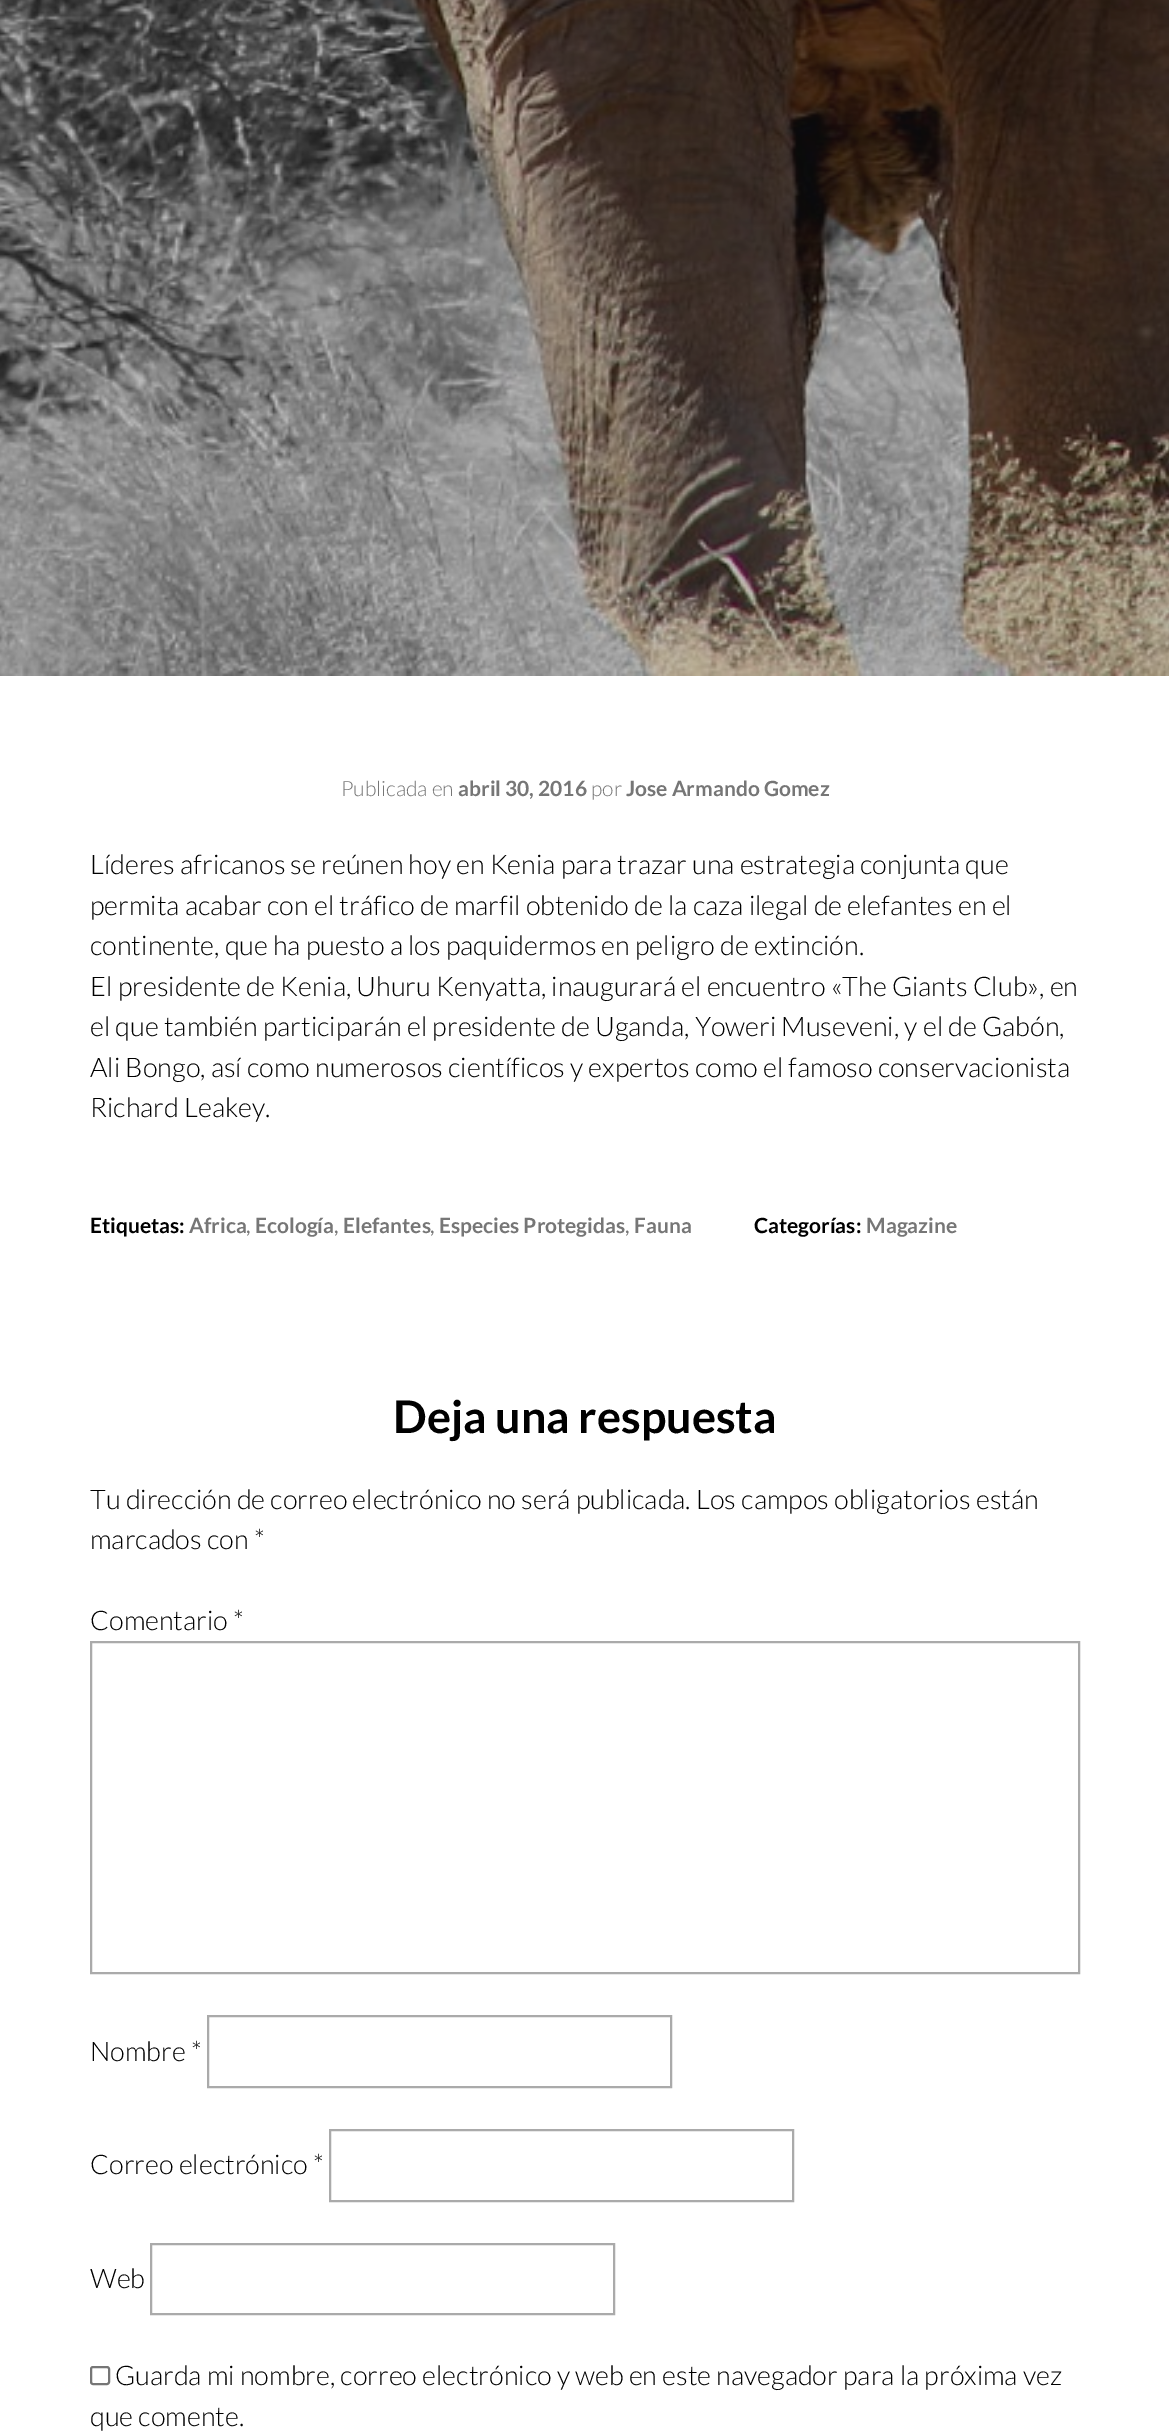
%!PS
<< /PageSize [1169 2432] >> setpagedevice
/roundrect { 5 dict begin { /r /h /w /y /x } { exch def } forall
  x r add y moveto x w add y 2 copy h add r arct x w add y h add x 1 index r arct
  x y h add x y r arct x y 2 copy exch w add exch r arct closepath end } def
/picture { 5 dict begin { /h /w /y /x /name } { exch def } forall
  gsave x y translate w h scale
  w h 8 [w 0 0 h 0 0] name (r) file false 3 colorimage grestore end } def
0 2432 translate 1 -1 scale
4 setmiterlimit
1 setgray
0 0 1169 2432 rectfill
(img1.rgb) 0 0 1169 676 picture
/Lato-Light [21 0 0 -21 0 0] selectfont
0.463 setgray
341 796 moveto (Publicada en) show
/Lato-Bold [21 0 0 -21 0 0] selectfont
458 796 moveto (abril 30, 2016) show
/Lato-Light [21 0 0 -21 0 0] selectfont
591 796 moveto (por) show
/Lato-Bold [21 0 0 -21 0 0] selectfont
626 796 moveto (Jose Armando Gomez) show
/Lato-Light [27 0 0 -27 0 0] selectfont
0 setgray
90 874 moveto (Líderes africanos se reúnen hoy en Kenia para trazar una estrategia conjunta que) show
90 915 moveto (permita acabar con el tráfico de marfil obtenido de la caza ilegal de elefantes en el) show
90 955 moveto (continente, que ha puesto a los paquidermos en peligro de extinción.) show
90 996 moveto (El presidente de Kenia, Uhuru Kenyatta, inaugurará el encuentro «The Giants Club», en) show
90 1036 moveto (el que también participarán el presidente de Uganda, Yoweri Museveni, y el de Gabón,) show
90 1077 moveto (Ali Bongo, así como numerosos científicos y expertos como el famoso conservacionista) show
90 1117 moveto (Richard Leakey.) show
/Lato-Bold [21 0 0 -21 0 0] selectfont
90 1233 moveto (Etiquetas:) show
0.463 setgray
189 1233 moveto (Africa) show
/Lato-Regular [21 0 0 -21 0 0] selectfont
246 1233 moveto (,) show
/Lato-Bold [21 0 0 -21 0 0] selectfont
255 1233 moveto (Ecología) show
/Lato-Regular [21 0 0 -21 0 0] selectfont
334 1233 moveto (,) show
/Lato-Bold [21 0 0 -21 0 0] selectfont
343 1233 moveto (Elefantes) show
/Lato-Regular [21 0 0 -21 0 0] selectfont
430 1233 moveto (,) show
/Lato-Bold [21 0 0 -21 0 0] selectfont
439 1233 moveto (Especies Protegidas) show
/Lato-Regular [21 0 0 -21 0 0] selectfont
625 1233 moveto (,) show
/Lato-Bold [21 0 0 -21 0 0] selectfont
634 1233 moveto (Fauna) show
0 setgray
754 1233 moveto (Categorías:) show
0.463 setgray
866 1233 moveto (Magazine) show
/Lato-Bold [45 0 0 -45 0 0] selectfont
0 setgray
393 1433 moveto (Deja una respuesta) show
/Lato-Light [27 0 0 -27 0 0] selectfont
90 1509 moveto (Tu dirección de correo electrónico no será publicada. Los campos obligatorios están) show
90 1549 moveto (marcados con *) show
90 1630 moveto (Comentario *) show
0.667 setgray
2 setlinewidth
91 1642 988 331 rectstroke
0 setgray
90 2061 moveto (Nombre *) show
0.667 setgray
208 2016 463 71 rectstroke
0 setgray
90 2174 moveto (Correo electrónico *) show
0.667 setgray
330 2130 463 71 rectstroke
0 setgray
90 2288 moveto (Web) show
0.667 setgray
151 2244 463 70 rectstroke
0.463 setgray
91 2367 18 17 2 roundrect stroke
0 setgray
115 2385 moveto (Guarda mi nombre, correo electrónico y web en este navegador para la próxima vez) show
90 2426 moveto (que comente.) show
showpage
